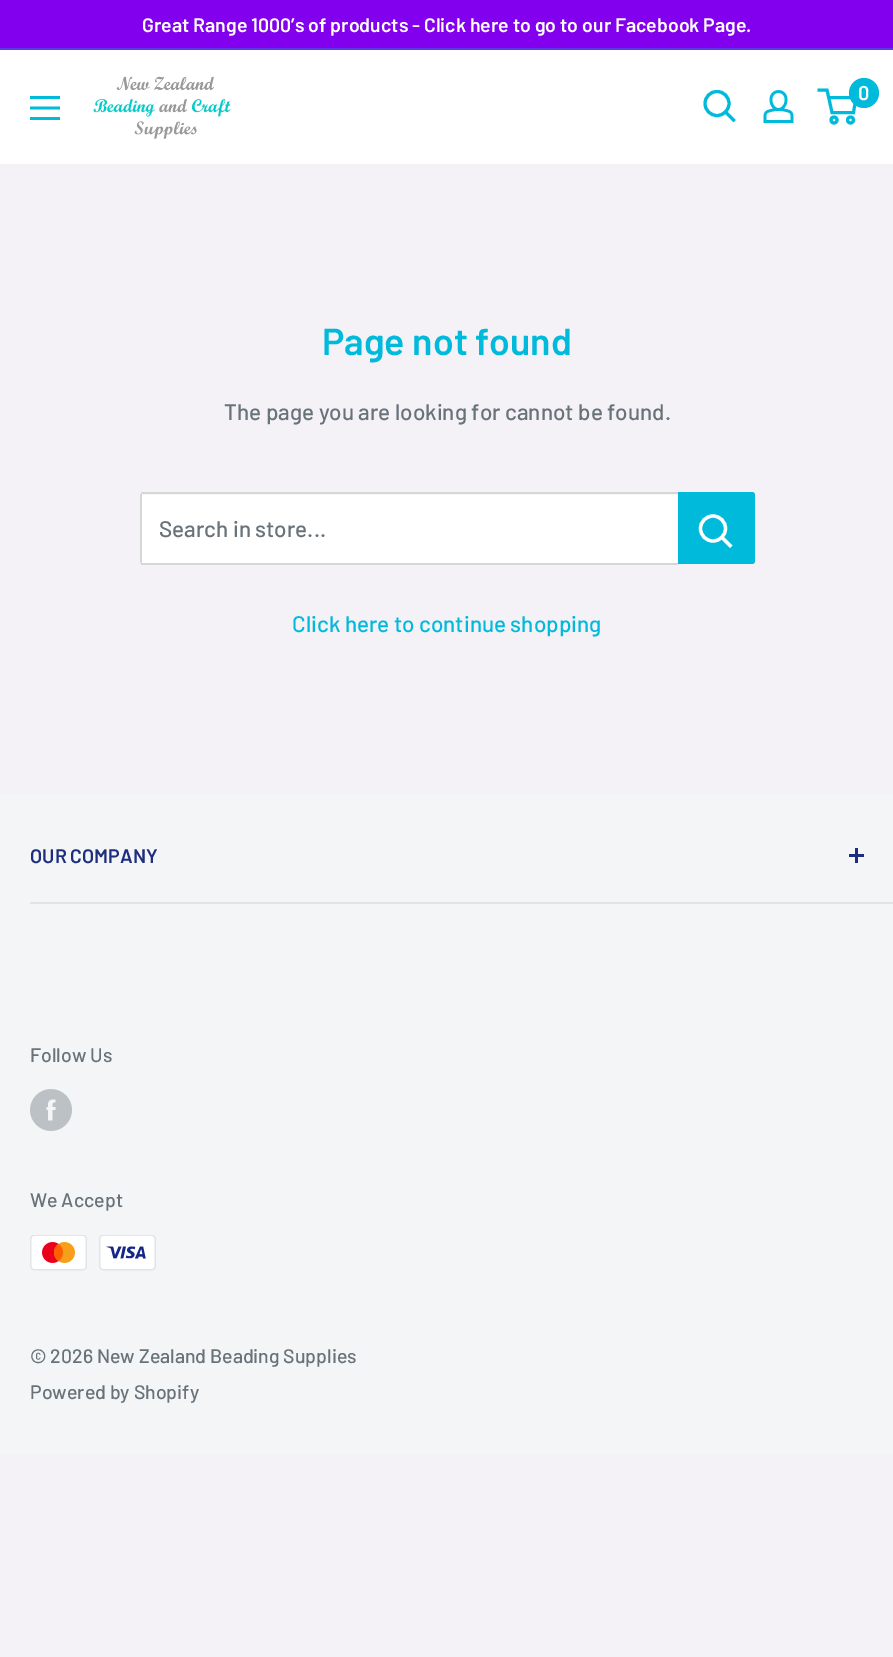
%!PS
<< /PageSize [893 1657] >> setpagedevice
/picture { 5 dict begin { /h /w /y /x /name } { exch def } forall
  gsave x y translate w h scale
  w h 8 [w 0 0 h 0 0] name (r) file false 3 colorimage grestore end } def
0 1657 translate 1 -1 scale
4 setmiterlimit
0.957 0.945 0.969 setrgbcolor
0 0 893 1657 rectfill
0.51 0 0.933 setrgbcolor
0 0 893 48 rectfill
0.357 0.22 0.91 setrgbcolor
0 48 893 2 rectfill
/Barlow-SemiBold [19.5 0 0 -19.5 0 0] selectfont
1 setgray
142 32 moveto (Great Range 1000’s of products - Click here to go to our Facebook Page.) show
0 50 893 114 rectfill
(img1.rgb) 93 76 138 63 picture
0 0.729 0.859 setrgbcolor
3.1 setlinewidth
2 setlinecap
newpath 733.5 120 moveto 725.5 112 lineto stroke
0 setlinecap
newpath 717 103.5 12 0 360 arc closepath stroke
(img2.rgb) 763 90 31 33 picture
3 setlinewidth
newpath 834 120 3 0 360 arc closepath stroke
newpath 850.5 120 3 0 360 arc closepath stroke
newpath 828.5 97.5 moveto 856 97.5 lineto 853.5 112.5 lineto 832 112.5 lineto 827 90 lineto 817.5 90 lineto stroke
newpath 864 93 15 0 360 arc closepath fill
/Barlow-SemiBold [20 0 0 -20 0 0] selectfont
1 setgray
858 100 moveto (0) show
(img3.rgb) 30 96 30 24 picture
/Barlow-SemiBold [37.5 0 0 -37.5 0 0] selectfont
0 0.729 0.859 setrgbcolor
322 355 moveto (Page not found) show
/Barlow-Medium [22.5 0 0 -22.5 0 0] selectfont
0.404 0.447 0.475 setrgbcolor
224 420 moveto (The page you are looking for cannot be found.) show
1 setgray
newpath 143 492 moveto 678 492 lineto 678 564 lineto 143 564 lineto 141.5 564 140 562.5 140 561 curveto 140 495 lineto 140 493.5 141.5 492 143 492 curveto closepath fill
0.973 setgray
newpath 142 495 moveto 678 495 lineto 678 494 lineto 142 494 lineto 141 494 141 495 141 496 curveto closepath fill
0.831 0.839 0.847 setrgbcolor
141 492 537 2 rectfill
141 563 537 2 rectfill
140 494 2 69 rectfill
0.404 0.447 0.475 setrgbcolor
159 537 moveto (Search in store...) show
0 0.729 0.859 setrgbcolor
newpath 678 492 moveto 752 492 lineto 753.5 492 755 493.5 755 495 curveto 755 561 lineto 755 562.5 753.5 564 752 564 curveto 678 564 lineto closepath fill
1 setgray
3.3 setlinewidth
2 setlinecap
newpath 730 545.5 moveto 722 537.5 lineto stroke
0 setlinecap
newpath 713 528.5 12.5 0 360 arc closepath stroke
0 0.729 0.859 setrgbcolor
292 632 moveto (Click here to continue shopping) show
0.953 0.961 0.965 setrgbcolor
0 794 893 661 rectfill
0.882 0.89 0.894 setrgbcolor
30 902 863 2 rectfill
/Barlow-SemiBold [19.5 0 0 -19.5 0 0] selectfont
0.118 0.176 0.49 setrgbcolor
30 863 moveto (OUR COMPANY) show
855 848 3 15 rectfill
849 854 15 3 rectfill
/Barlow-Medium [19.5 0 0 -19.5 0 0] selectfont
0.404 0.447 0.475 setrgbcolor
30 1062 moveto (Follow Us) show
(img4.rgb) 30 1089 42 42 picture
30 1207 moveto (We Accept) show
(img5.rgb) 30 1235 57 36 picture
(img6.rgb) 99 1235 57 36 picture
30 1363 moveto (© 2026 New Zealand Beading Supplies) show
30 1399 moveto (Powered by Shopify) show
showpage
